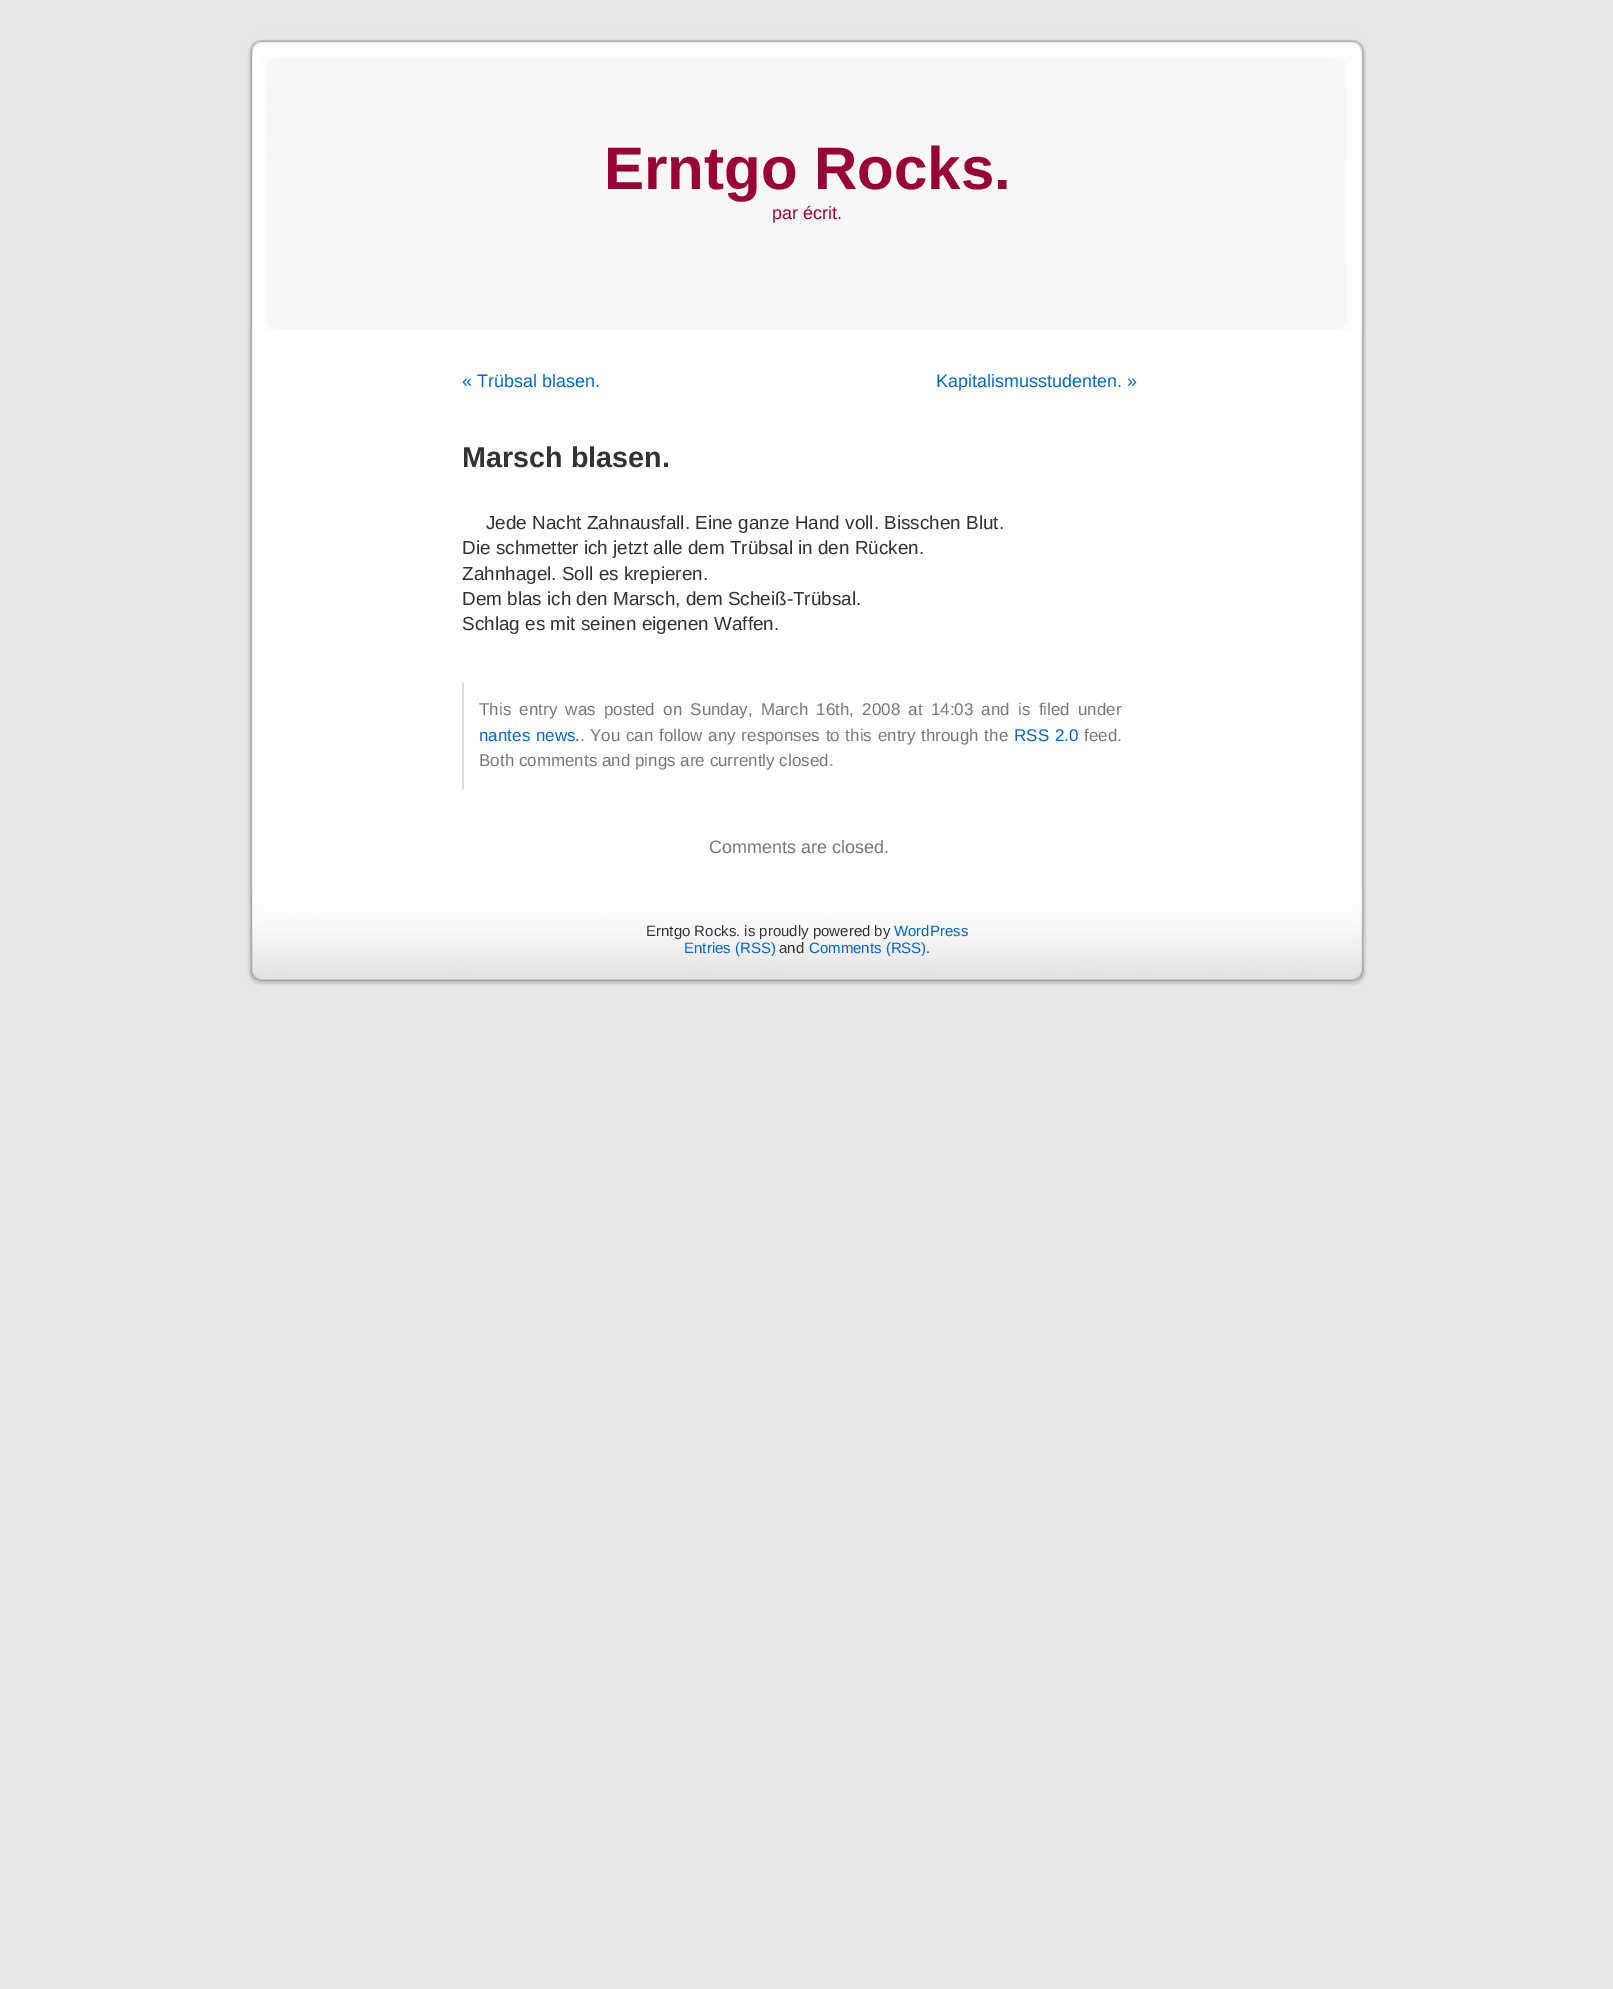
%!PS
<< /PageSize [1613 1989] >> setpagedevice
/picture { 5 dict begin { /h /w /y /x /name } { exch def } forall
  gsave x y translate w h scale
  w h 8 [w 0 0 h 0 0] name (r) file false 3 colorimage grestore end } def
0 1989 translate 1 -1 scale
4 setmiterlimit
0.906 setgray
0 0 1613 1989 rectfill
(img1.rgb) 247 330 1119 563 picture
(img2.rgb) 247 30 1119 300 picture
/LiberationSans-Bold [60 0 0 -60 0 0] selectfont
0.6 0 0.2 setrgbcolor
604 189 moveto (Erntgo Rocks.) show
/LiberationSans-Regular [18 0 0 -18 0 0] selectfont
772 219 moveto (par écrit.) show
0 0.4 0.8 setrgbcolor
462 387 moveto (« Trübsal blasen.) show
936 387 moveto (Kapitalismusstudenten. ») show
/LiberationSans-Bold [28.75 0 0 -28.75 0 0] selectfont
0.2 setgray
462 467 moveto (Marsch blasen.) show
/LiberationSans-Regular [18.9 0 0 -18.9 0 0] selectfont
486 529 moveto (Jede Nacht Zahnausfall. Eine ganze Hand voll. Bisschen Blut.) show
462 554 moveto (Die schmetter ich jetzt alle dem Trübsal in den Rücken.) show
462 580 moveto (Zahnhagel. Soll es krepieren.) show
462 605 moveto (Dem blas ich den Marsch, dem Scheiß-Trübsal.) show
462 630 moveto (Schlag es mit seinen eigenen Waffen.) show
0.867 setgray
462 683 2 106 rectfill
/LiberationSans-Regular [17 0 0 -17 0 0] selectfont
0.467 setgray
479 715 moveto 3.5 0 32 (This entry was posted on Sunday, March 16th, 2008 at 14:03 and is filed under) widthshow
0 0.4 0.8 setrgbcolor
479 741 moveto 1 0 32 (nantes news.) widthshow
0.467 setgray
580 741 moveto (.) show
590 741 moveto 1 0 32 (You can follow any responses to this entry through the) widthshow
0 0.4 0.8 setrgbcolor
1014 741 moveto 1 0 32 (RSS 2.0) widthshow
0.467 setgray
1084 741 moveto (feed.) show
479 766 moveto (Both comments and pings are currently closed.) show
/LiberationSans-Regular [18 0 0 -18 0 0] selectfont
709 853 moveto (Comments are closed.) show
(img3.rgb) 247 893 1120 93 picture
/LiberationSans-Regular [15 0 0 -15 0 0] selectfont
0.2 setgray
646 936 moveto (Erntgo Rocks. is proudly powered by) show
0 0.4 0.8 setrgbcolor
894 936 moveto (WordPress) show
684 953 moveto (Entries \(RSS\)) show
0.2 setgray
779 953 moveto (and) show
0 0.4 0.8 setrgbcolor
809 953 moveto (Comments \(RSS\)) show
0.2 setgray
926 953 moveto (.) show
showpage
